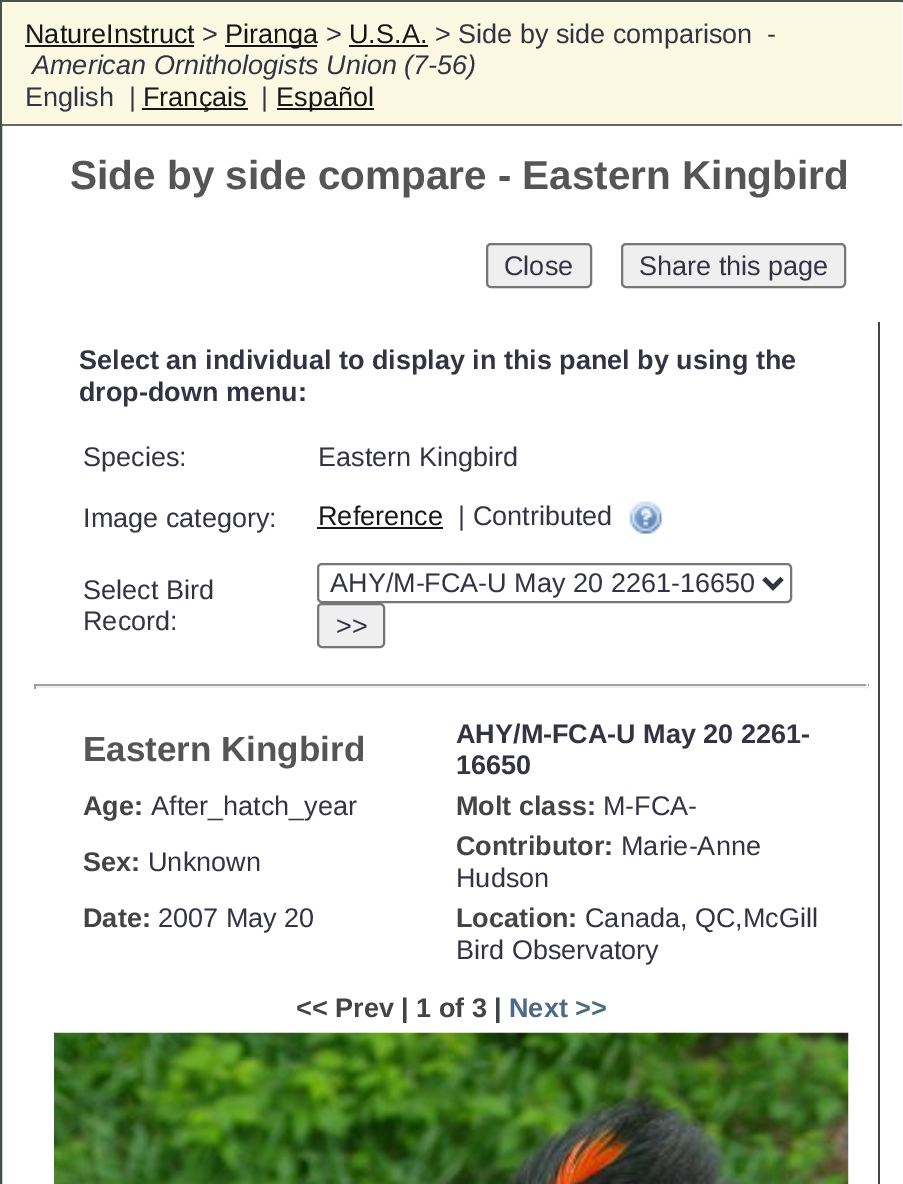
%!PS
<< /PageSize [903 1184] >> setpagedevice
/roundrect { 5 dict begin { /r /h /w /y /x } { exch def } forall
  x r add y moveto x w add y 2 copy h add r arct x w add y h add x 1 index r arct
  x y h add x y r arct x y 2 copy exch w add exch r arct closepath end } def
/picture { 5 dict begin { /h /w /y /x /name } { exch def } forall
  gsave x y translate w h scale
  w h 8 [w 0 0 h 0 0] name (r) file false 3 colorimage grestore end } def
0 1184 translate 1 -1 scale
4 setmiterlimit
1 setgray
0 0 903 1184 rectfill
0.275 0.322 0.282 setrgbcolor
2 setlinewidth
1 1 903 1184 rectstroke
0.984 0.976 0.886 setrgbcolor
2 2 900 122 rectfill
0.404 setgray
2 124 900 2 rectfill
/LiberationSans-Regular [27 0 0 -27 0 0] selectfont
0.09 setgray
25 43 moveto (NatureInstruct) show
25 45 169 2 rectfill
0.2 0.2 0.267 setrgbcolor
202 43 moveto (>) show
0.09 setgray
225 45 92 2 rectfill
225 43 moveto (Piranga) show
0.2 0.2 0.267 setrgbcolor
326 43 moveto (>) show
0.09 setgray
349 43 moveto (U.S.A.) show
349 45 79 2 rectfill
0.2 0.2 0.267 setrgbcolor
435 43 moveto (> Side by side comparison) show
767 43 moveto (-) show
/LiberationSans-Italic [27 0 0 -27 0 0] selectfont
32 74 moveto (American Ornithologists Union \(7-56\)) show
/LiberationSans-Regular [27 0 0 -27 0 0] selectfont
25 106 moveto (English  |) show
0.09 setgray
142 108 106 2 rectfill
143 106 moveto (Français) show
0.2 0.2 0.267 setrgbcolor
261 106 moveto (|) show
0.09 setgray
277 108 97 2 rectfill
276 106 moveto (Español) show
/LiberationSans-Bold [40.5 0 0 -40.5 0 0] selectfont
0.333 setgray
70 189 moveto (Side by side compare - Eastern Kingbird) show
0.937 setgray
487 244 104 43 4 roundrect gsave fill grestore
0.463 setgray
stroke
/LiberationSans-Regular [27 0 0 -27 0 0] selectfont
0.2 0.2 0.267 setrgbcolor
504 275 moveto (Close) show
0.937 setgray
622 244 223 43 4 roundrect gsave fill grestore
0.463 setgray
stroke
0.2 0.2 0.267 setrgbcolor
639 275 moveto (Share this page) show
0.271 setgray
878 322 2 862 rectfill
/LiberationSans-Bold [27 0 0 -27 0 0] selectfont
0.2 0.2 0.267 setrgbcolor
79 369 moveto (Select an individual to display in this panel by using the) show
79 401 moveto (drop-down menu:) show
/LiberationSans-Regular [27 0 0 -27 0 0] selectfont
83 466 moveto (Species:) show
318 466 moveto (Eastern Kingbird) show
83 527 moveto (Image category:) show
0.09 setgray
318 525 moveto (Reference) show
317 527 126 2 rectfill
0.2 0.2 0.267 setrgbcolor
458 525 moveto (| Contributed) show
(img1.rgb) 629 501 34 33 picture
83 599 moveto (Select Bird) show
83 630 moveto (Record:) show
0.463 setgray
318 564 473 38 4 roundrect stroke
0.2 0.2 0.267 setrgbcolor
4.5 setlinewidth
newpath 764 578.5 moveto 773 587.5 lineto 782 578.5 lineto stroke
330 592 moveto (AHY/M-FCA-U May 20 2261-16650) show
0.937 setgray
318 604 66 43 4 roundrect gsave fill grestore
0.463 setgray
2 setlinewidth
stroke
0.2 0.2 0.267 setrgbcolor
336 635 moveto (>>) show
0.624 setgray
34 684 835 2 rectfill
0.933 setgray
866 684 2 5 rectfill
34 686 835 2 rectfill
0.624 setgray
34 684 2 5 rectfill
/LiberationSans-Bold [35 0 0 -35 0 0] selectfont
0.333 setgray
83 761 moveto (Eastern Kingbird) show
/LiberationSans-Bold [27 0 0 -27 0 0] selectfont
0.2 0.2 0.267 setrgbcolor
456 743 moveto (AHY/M-FCA-U May 20 2261-) show
456 774 moveto (16650) show
0.267 setgray
83 815 moveto (Age:) show
/LiberationSans-Regular [27 0 0 -27 0 0] selectfont
0.2 0.2 0.267 setrgbcolor
151 815 moveto (After_hatch_year) show
/LiberationSans-Bold [27 0 0 -27 0 0] selectfont
0.267 setgray
456 815 moveto (Molt class:) show
/LiberationSans-Regular [27 0 0 -27 0 0] selectfont
0.2 0.2 0.267 setrgbcolor
603 815 moveto (M-FCA-) show
/LiberationSans-Bold [27 0 0 -27 0 0] selectfont
0.267 setgray
83 871 moveto (Sex:) show
/LiberationSans-Regular [27 0 0 -27 0 0] selectfont
0.2 0.2 0.267 setrgbcolor
148 871 moveto (Unknown) show
/LiberationSans-Bold [27 0 0 -27 0 0] selectfont
0.267 setgray
456 855 moveto (Contributor:) show
/LiberationSans-Regular [27 0 0 -27 0 0] selectfont
0.2 0.2 0.267 setrgbcolor
621 855 moveto (Marie-Anne) show
456 887 moveto (Hudson) show
/LiberationSans-Bold [27 0 0 -27 0 0] selectfont
0.267 setgray
83 927 moveto (Date:) show
/LiberationSans-Regular [27 0 0 -27 0 0] selectfont
0.2 0.2 0.267 setrgbcolor
158 927 moveto (2007 May 20) show
/LiberationSans-Bold [27 0 0 -27 0 0] selectfont
0.267 setgray
456 927 moveto (Location:) show
/LiberationSans-Regular [27 0 0 -27 0 0] selectfont
0.2 0.2 0.267 setrgbcolor
585 927 moveto (Canada, QC,McGill) show
456 959 moveto (Bird Observatory) show
/LiberationSans-Bold [27 0 0 -27 0 0] selectfont
0.267 setgray
296 1017 moveto (<< Prev | 1 of 3 |) show
0.294 0.416 0.529 setrgbcolor
509 1017 moveto (Next >>) show
(img2.rgb) 54 1032 795 152 picture
showpage
